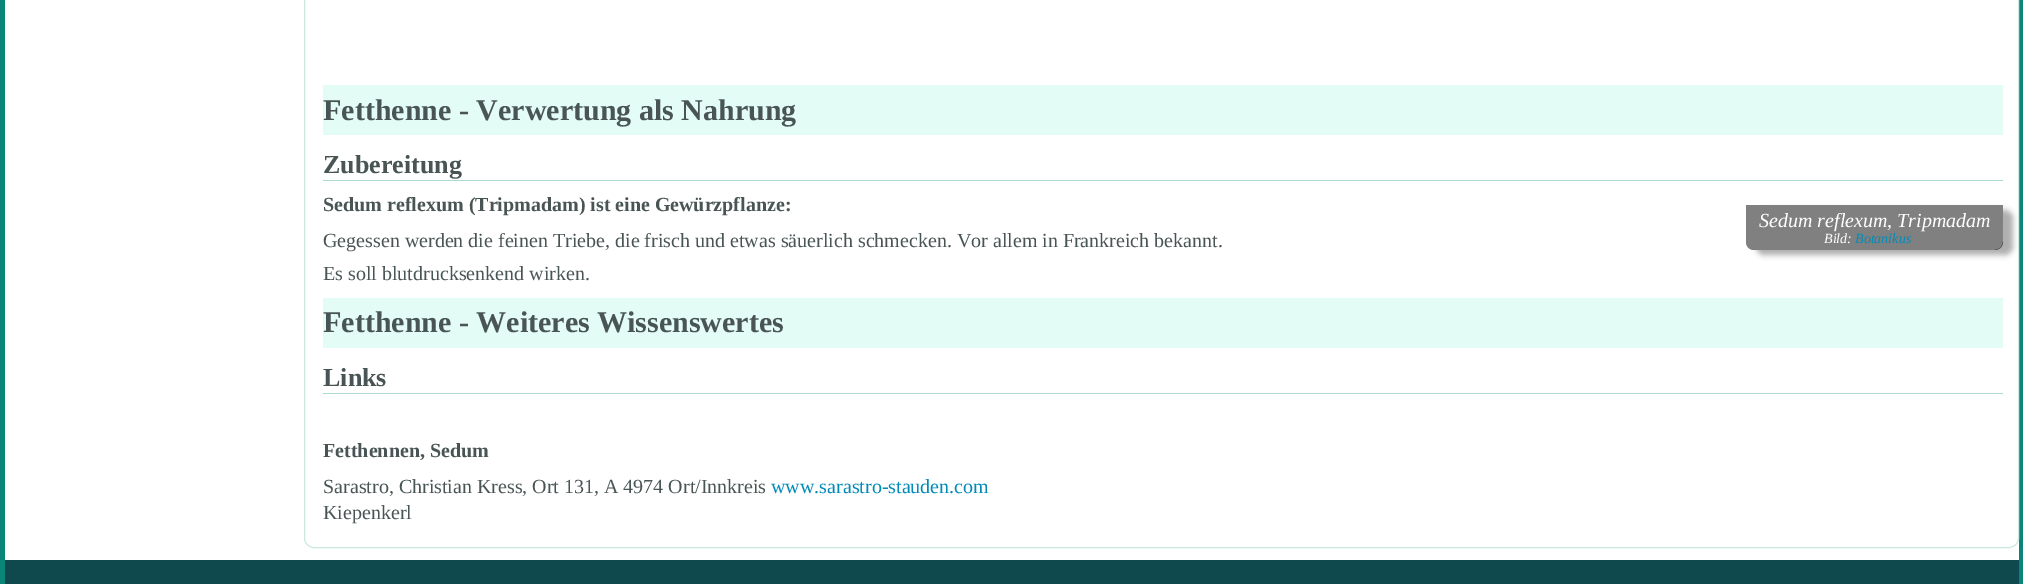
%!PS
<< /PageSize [2023 584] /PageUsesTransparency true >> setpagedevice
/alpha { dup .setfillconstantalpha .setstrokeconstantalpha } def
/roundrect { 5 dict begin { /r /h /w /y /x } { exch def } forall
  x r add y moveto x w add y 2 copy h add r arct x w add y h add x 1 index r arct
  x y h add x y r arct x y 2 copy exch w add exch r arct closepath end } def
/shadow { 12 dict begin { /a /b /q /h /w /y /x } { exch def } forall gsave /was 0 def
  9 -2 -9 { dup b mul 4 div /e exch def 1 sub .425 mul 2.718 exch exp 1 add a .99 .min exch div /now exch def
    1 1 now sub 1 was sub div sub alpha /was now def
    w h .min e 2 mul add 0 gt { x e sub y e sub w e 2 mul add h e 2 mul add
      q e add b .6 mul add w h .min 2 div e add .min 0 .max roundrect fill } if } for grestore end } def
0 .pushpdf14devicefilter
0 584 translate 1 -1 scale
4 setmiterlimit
0.039 0.522 0.467 setrgbcolor
0 0 2023 584 rectfill
1 setgray
5 0 2014 560 rectfill
0.792 0.91 0.882 setrgbcolor
304.5 -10.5 1714 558 9.5 roundrect stroke
0.89 0.988 0.961 setrgbcolor
323 85 1680 50 rectfill
/LiberationSerif-Bold [30 0 0 -30 0 0] selectfont
0.286 0.333 0.333 setrgbcolor
323 120 moveto (Fetthenne - Verwertung als Nahrung) show
0.69 0.851 0.824 setrgbcolor
323 180 1680 1 rectfill
/LiberationSerif-Bold [26 0 0 -26 0 0] selectfont
0.286 0.333 0.333 setrgbcolor
323 173 moveto (Zubereitung) show
/LiberationSerif-Bold [20 0 0 -20 0 0] selectfont
323 211 moveto (Sedum reflexum \(Tripmadam\) ist eine Gewürzpflanze:) show
/LiberationSerif-Regular [20 0 0 -20 0 0] selectfont
323 247 moveto (Gegessen werden die feinen Triebe, die frisch und etwas säuerlich schmecken. Vor allem in Frankreich bekannt.) show
gsave
newpath 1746 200 moveto 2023 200 lineto 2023 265 lineto 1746 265 lineto closepath 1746 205 moveto 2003 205 lineto 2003 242 lineto 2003 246.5 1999.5 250 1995 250 curveto 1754 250 lineto 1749.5 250 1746 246.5 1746 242 curveto closepath eoclip newpath
0.51 setgray
1756 210 257 45 8 3 0.66 shadow
grestore
0.5 alpha
0.004 setgray
newpath 1746 205 moveto 2003 205 lineto 2003 242 lineto 2003 246.5 1999.5 250 1995 250 curveto 1754 250 lineto 1749.5 250 1746 246.5 1746 242 curveto closepath fill
/LiberationSerif-Italic [20 0 0 -20 0 0] selectfont
1 alpha
1 setgray
1759 227 moveto (Sedum reflexum, Tripmadam) show
/LiberationSerif-Italic [14 0 0 -14 0 0] selectfont
1824 243 moveto (Bild:) show
0 0.545 0.722 setrgbcolor
1855 243 moveto (Botanikus) show
/LiberationSerif-Regular [20 0 0 -20 0 0] selectfont
0.286 0.333 0.333 setrgbcolor
323 280 moveto (Es soll blutdrucksenkend wirken.) show
0.89 0.988 0.961 setrgbcolor
323 298 1680 50 rectfill
/LiberationSerif-Bold [30 0 0 -30 0 0] selectfont
0.286 0.333 0.333 setrgbcolor
323 332 moveto (Fetthenne - Weiteres Wissenswertes) show
0.69 0.851 0.824 setrgbcolor
323 393 1680 1 rectfill
/LiberationSerif-Bold [26 0 0 -26 0 0] selectfont
0.286 0.333 0.333 setrgbcolor
323 386 moveto (Links) show
/LiberationSerif-Bold [20 0 0 -20 0 0] selectfont
323 457 moveto (Fetthennen, Sedum) show
/LiberationSerif-Regular [20 0 0 -20 0 0] selectfont
323 493 moveto (Sarastro, Christian Kress, Ort 131, A 4974 Ort/Innkreis) show
0 0.545 0.722 setrgbcolor
771 493 moveto (www.sarastro-stauden.com) show
0.286 0.333 0.333 setrgbcolor
323 519 moveto (Kiepenkerl) show
0.059 0.282 0.302 setrgbcolor
5 560 2014 24 rectfill
.poppdf14devicefilter showpage
